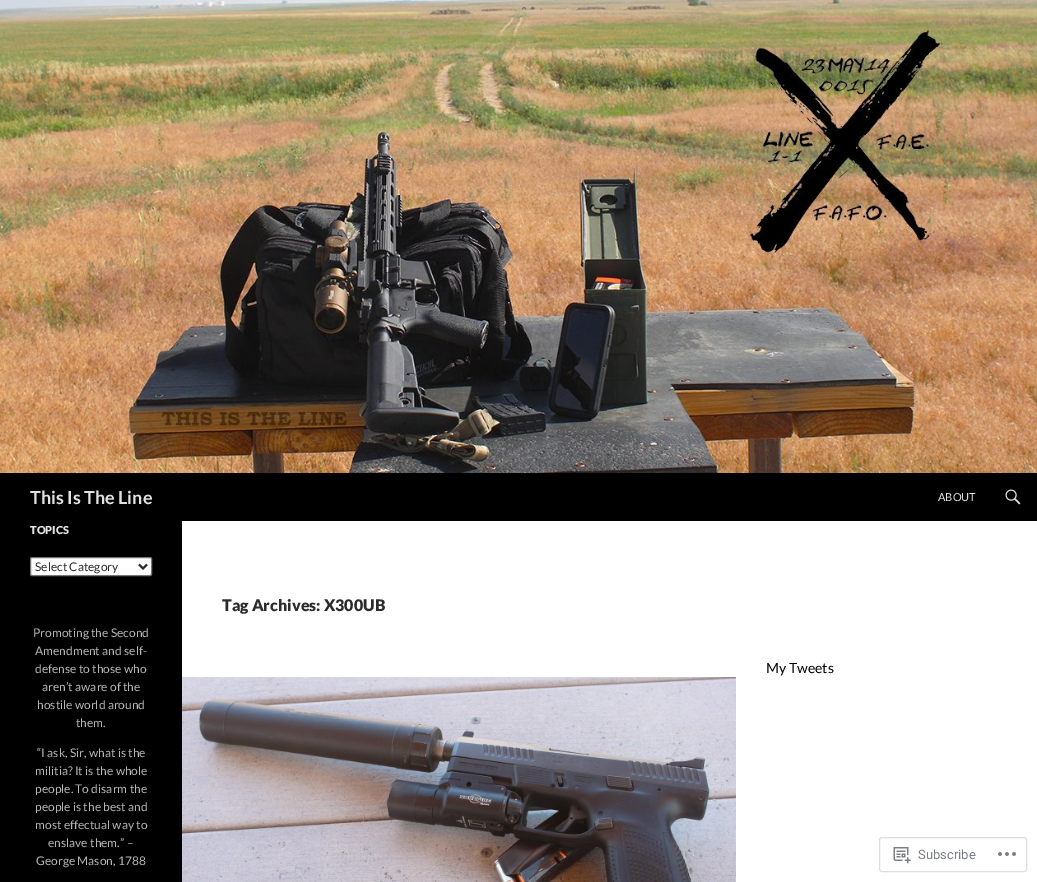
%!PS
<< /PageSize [1037 882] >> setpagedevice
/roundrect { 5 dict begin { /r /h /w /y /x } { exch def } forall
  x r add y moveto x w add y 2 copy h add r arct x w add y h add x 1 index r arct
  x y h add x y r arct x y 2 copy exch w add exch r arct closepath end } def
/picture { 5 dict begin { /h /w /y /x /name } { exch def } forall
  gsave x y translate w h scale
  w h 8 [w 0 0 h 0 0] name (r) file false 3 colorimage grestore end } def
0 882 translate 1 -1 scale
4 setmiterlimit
1 setgray
0 0 1037 882 rectfill
(img1.rgb) 0 0 1037 473 picture
0 setgray
0 473 1037 48 rectfill
/Lato-Bold [18 0 0 -18 0 0] selectfont
0.886 setgray
30 504 moveto (This Is The Line) show
/Lato-Regular [11 0 0 -11 0 0] selectfont
938 501 moveto (ABOUT) show
(img2.rgb) 1005 489 16 16 picture
0 setgray
0 521 182 361 rectfill
/Lato-Black [11 0 0 -11 0 0] selectfont
0.886 setgray
30 534 moveto (TOPICS) show
1 setgray
30.5 557.5 121 18 1.5 roundrect gsave fill grestore
0.463 setgray
stroke
0.169 setgray
2 setlinewidth
newpath 139 564.5 moveto 143 568.5 lineto 147 564.5 lineto stroke
/Lato-Regular [12 0 0 -12 0 0] selectfont
35 571 moveto (Select Category) show
0.71 setgray
33 637 moveto (Promoting the Second) show
35 655 moveto (Amendment and self-) show
35 673 moveto (defense to those who) show
42 691 moveto (aren’t aware of the) show
37 709 moveto (hostile world around) show
76 727 moveto (them.) show
37 757 moveto (“I ask, Sir, what is the) show
35 775 moveto (militia? It is the whole) show
35 793 moveto (people. To disarm the) show
35 811 moveto (people is the best and) show
35 829 moveto (most effectual way to) show
48 847 moveto (enslave them.” –) show
36 865 moveto (George Mason, 1788) show
/Lato-Black [16 0 0 -16 0 0] selectfont
0.169 setgray
222 611 moveto (Tag Archives: X300UB) show
(img3.rgb) 182 677 554 205 picture
/Lato-Regular [14 0 0 -14 0 0] selectfont
0 setgray
766 673 moveto (My Tweets) show
0.867 0.867 0.875 setrgbcolor
1 setlinewidth
879.5 837.5 147 34 2.5 roundrect stroke
(img4.rgb) 893 847 18 17 picture
/Roboto-Regular [13 0 0 -13 0 0] selectfont
0.482 0.498 0.522 setrgbcolor
918 859 moveto (Subscribe) show
(img5.rgb) 998 852 18 4 picture
showpage
